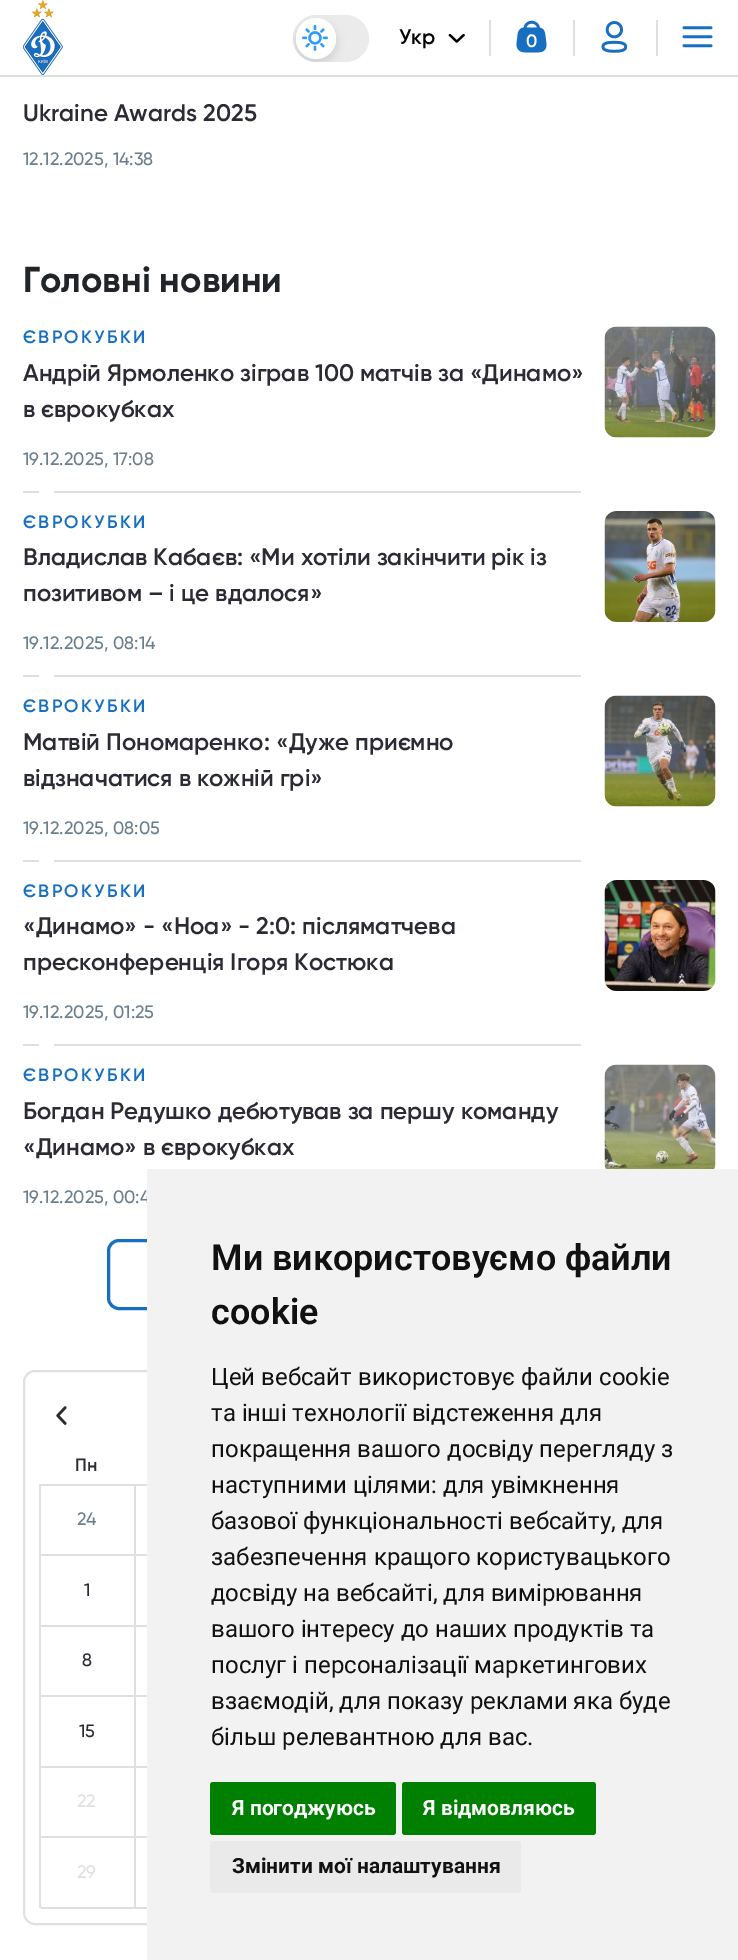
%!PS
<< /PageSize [738 1960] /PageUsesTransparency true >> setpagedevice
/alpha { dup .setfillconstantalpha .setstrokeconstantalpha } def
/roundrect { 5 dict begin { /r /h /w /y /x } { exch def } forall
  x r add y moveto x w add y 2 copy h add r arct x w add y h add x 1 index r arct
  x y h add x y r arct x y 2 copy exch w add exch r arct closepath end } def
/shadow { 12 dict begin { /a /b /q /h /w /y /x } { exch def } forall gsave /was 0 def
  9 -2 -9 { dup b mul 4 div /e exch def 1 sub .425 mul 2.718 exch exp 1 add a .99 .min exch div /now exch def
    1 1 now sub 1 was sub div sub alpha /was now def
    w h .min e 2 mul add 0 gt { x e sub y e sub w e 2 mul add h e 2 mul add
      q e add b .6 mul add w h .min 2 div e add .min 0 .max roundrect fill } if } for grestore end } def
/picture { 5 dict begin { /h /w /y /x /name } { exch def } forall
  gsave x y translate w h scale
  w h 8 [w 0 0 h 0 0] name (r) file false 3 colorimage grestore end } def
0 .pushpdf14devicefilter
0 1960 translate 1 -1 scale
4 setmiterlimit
1 setgray
0 0 738 1960 rectfill
0.878 setgray
0 75 738 2 rectfill
(img1.rgb) 23 0 40 75 picture
0.922 setgray
293 15 76 47 23.5 roundrect fill
gsave
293 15 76 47 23.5 roundrect clip newpath
0 setgray
296 23 40 40 20 5 0.12 shadow
grestore
1 setgray
296 18 40 41 20 roundrect fill
(img2.rgb) 302 24 26 27 picture
/Gilroy-SemiBold [21 0 0 -21 0 0] selectfont
0 setgray
399 44 moveto (Укр) show
(img3.rgb) 448 33 17 10 picture
0.878 setgray
573 20 2 36 rectfill
489 20 2 36 rectfill
(img4.rgb) 516 20 31 33 picture
/Gilroy-SemiBold [18 0 0 -18 0 0] selectfont
1 setgray
526 47 moveto (0) show
0.878 setgray
656 20 2 36 rectfill
(img5.rgb) 601 21 27 32 picture
(img6.rgb) 682 26 31 22 picture
/Gilroy-SemiBold [24 0 0 -24 0 0] selectfont
0.169 0.165 0.208 setrgbcolor
23 121 moveto (Ukraine Awards 2025) show
/Gilroy-Medium [18 0 0 -18 0 0] selectfont
0.424 0.49 0.549 setrgbcolor
23 165 moveto (12.12.2025, 14:38) show
/Gilroy-Bold [36 0 0 -36 0 0] selectfont
0.129 0.145 0.161 setrgbcolor
23 292 moveto (Головні новини) show
0.878 setgray
23 491 558 2 rectfill
/Gilroy-SemiBold [18 0 0 -18 0 0] selectfont
0.09 0.435 0.757 setrgbcolor
23 343 moveto 2.25 0 (ЄВРОКУБКИ) ashow
/Gilroy-SemiBold [24 0 0 -24 0 0] selectfont
0.169 0.165 0.208 setrgbcolor
23 381 moveto (Андрій Ярмоленко зіграв 100 матчів за «Динамо») show
23 417 moveto (в єврокубках) show
/Gilroy-Medium [18 0 0 -18 0 0] selectfont
0.424 0.49 0.549 setrgbcolor
23 465 moveto (19.12.2025, 17:08) show
(img7.rgb) 604 326 112 112 picture
1 setgray
39 491 15 2 rectfill
0.878 setgray
23 675 558 2 rectfill
/Gilroy-SemiBold [18 0 0 -18 0 0] selectfont
0.09 0.435 0.757 setrgbcolor
23 528 moveto 2.25 0 (ЄВРОКУБКИ) ashow
/Gilroy-SemiBold [24 0 0 -24 0 0] selectfont
0.169 0.165 0.208 setrgbcolor
23 565 moveto (Владислав Кабаєв: «Ми хотіли закінчити рік із) show
23 601 moveto (позитивом – і це вдалося») show
/Gilroy-Medium [18 0 0 -18 0 0] selectfont
0.424 0.49 0.549 setrgbcolor
23 649 moveto (19.12.2025, 08:14) show
(img8.rgb) 604 511 112 111 picture
1 setgray
39 675 15 2 rectfill
0.878 setgray
23 860 558 2 rectfill
/Gilroy-SemiBold [18 0 0 -18 0 0] selectfont
0.09 0.435 0.757 setrgbcolor
23 712 moveto 2.25 0 (ЄВРОКУБКИ) ashow
/Gilroy-SemiBold [24 0 0 -24 0 0] selectfont
0.169 0.165 0.208 setrgbcolor
23 750 moveto (Матвій Пономаренко: «Дуже приємно) show
23 786 moveto (відзначатися в кожній грі») show
/Gilroy-Medium [18 0 0 -18 0 0] selectfont
0.424 0.49 0.549 setrgbcolor
23 834 moveto (19.12.2025, 08:05) show
(img9.rgb) 604 695 112 112 picture
1 setgray
39 860 15 2 rectfill
0.878 setgray
23 1044 558 2 rectfill
/Gilroy-SemiBold [18 0 0 -18 0 0] selectfont
0.09 0.435 0.757 setrgbcolor
23 897 moveto 2.25 0 (ЄВРОКУБКИ) ashow
/Gilroy-SemiBold [24 0 0 -24 0 0] selectfont
0.169 0.165 0.208 setrgbcolor
23 934 moveto («Динамо» - «Ноа» - 2:0: післяматчева) show
23 970 moveto (пресконференція Ігоря Костюка) show
/Gilroy-Medium [18 0 0 -18 0 0] selectfont
0.424 0.49 0.549 setrgbcolor
23 1018 moveto (19.12.2025, 01:25) show
(img10.rgb) 604 880 112 111 picture
1 setgray
39 1044 15 2 rectfill
/Gilroy-SemiBold [18 0 0 -18 0 0] selectfont
0.09 0.435 0.757 setrgbcolor
23 1081 moveto 2.25 0 (ЄВРОКУБКИ) ashow
/Gilroy-SemiBold [24 0 0 -24 0 0] selectfont
0.169 0.165 0.208 setrgbcolor
23 1119 moveto (Богдан Редушко дебютував за першу команду) show
23 1155 moveto («Динамо» в єврокубках) show
/Gilroy-Medium [18 0 0 -18 0 0] selectfont
0.424 0.49 0.549 setrgbcolor
23 1203 moveto (19.12.2025, 00:4) show
(img11.rgb) 604 1064 112 105 picture
0.09 0.435 0.757 setrgbcolor
3 setlinewidth
108.5 1240.5 522 68 10.5 roundrect stroke
0.878 setgray
2 setlinewidth
24 1371 691 553 11 roundrect stroke
(img12.rgb) 56 1406 11 19 picture
/Gilroy-SemiBold [18 0 0 -18 0 0] selectfont
0.169 0.165 0.208 setrgbcolor
75 1471 moveto (Пн) show
0.878 setgray
39 1484 108 2 rectfill
39 1484 2 424 rectfill
134 1485 2 141 rectfill
41 1554 106 2 rectfill
/Gilroy-Medium [18 0 0 -18 0 0] selectfont
0.424 0.49 0.549 setrgbcolor
77 1525 moveto (24) show
0.878 setgray
41 1625 106 2 rectfill
0.169 0.165 0.208 setrgbcolor
84 1596 moveto (1) show
0.878 setgray
134 1626 2 141 rectfill
41 1695 106 2 rectfill
0.169 0.165 0.208 setrgbcolor
82 1666 moveto (8) show
0.878 setgray
41 1766 106 2 rectfill
0.169 0.165 0.208 setrgbcolor
79 1737 moveto (15) show
0.878 setgray
134 1767 2 141 rectfill
41 1836 106 2 rectfill
77 1807 moveto (22) show
41 1907 106 2 rectfill
77 1878 moveto (29) show
0.949 setgray
147 1169 591 791 rectfill
/Roboto-SemiBold [36 0 0 -36 0 0] selectfont
0.067 setgray
211 1270 moveto (Ми використовуємо файли) show
211 1324 moveto (cookie) show
/Roboto-Regular [24 0 0 -24 0 0] selectfont
211 1385 moveto (Цей вебсайт використовує файли cookie) show
211 1421 moveto (та інші технології відстеження для) show
211 1457 moveto (покращення вашого досвіду перегляду з) show
211 1493 moveto (наступними цілями: для увімкнення) show
211 1529 moveto (базової функціональності вебсайту, для) show
211 1565 moveto (забезпечення кращого користувацького) show
211 1601 moveto (досвіду на вебсайті, для вимірювання) show
211 1637 moveto (вашого інтересу до наших продуктів та) show
211 1673 moveto (послуг і персоналізації маркетингових) show
211 1709 moveto (взаємодій, для показу реклами яка буде) show
211 1745 moveto (більш релевантною для вас.) show
0 0.502 0 setrgbcolor
210 1782 186 53 3 roundrect fill
/Roboto-Bold [21 0 0 -21 0 0] selectfont
1 setgray
232 1815 moveto (Я погоджуюсь) show
0 0.502 0 setrgbcolor
402 1782 194 53 3 roundrect fill
1 setgray
423 1815 moveto (Я відмовляюсь) show
0.918 setgray
210 1841 311 52 3 roundrect fill
0.067 setgray
232 1873 moveto (Змінити мої налаштування) show
.poppdf14devicefilter showpage
